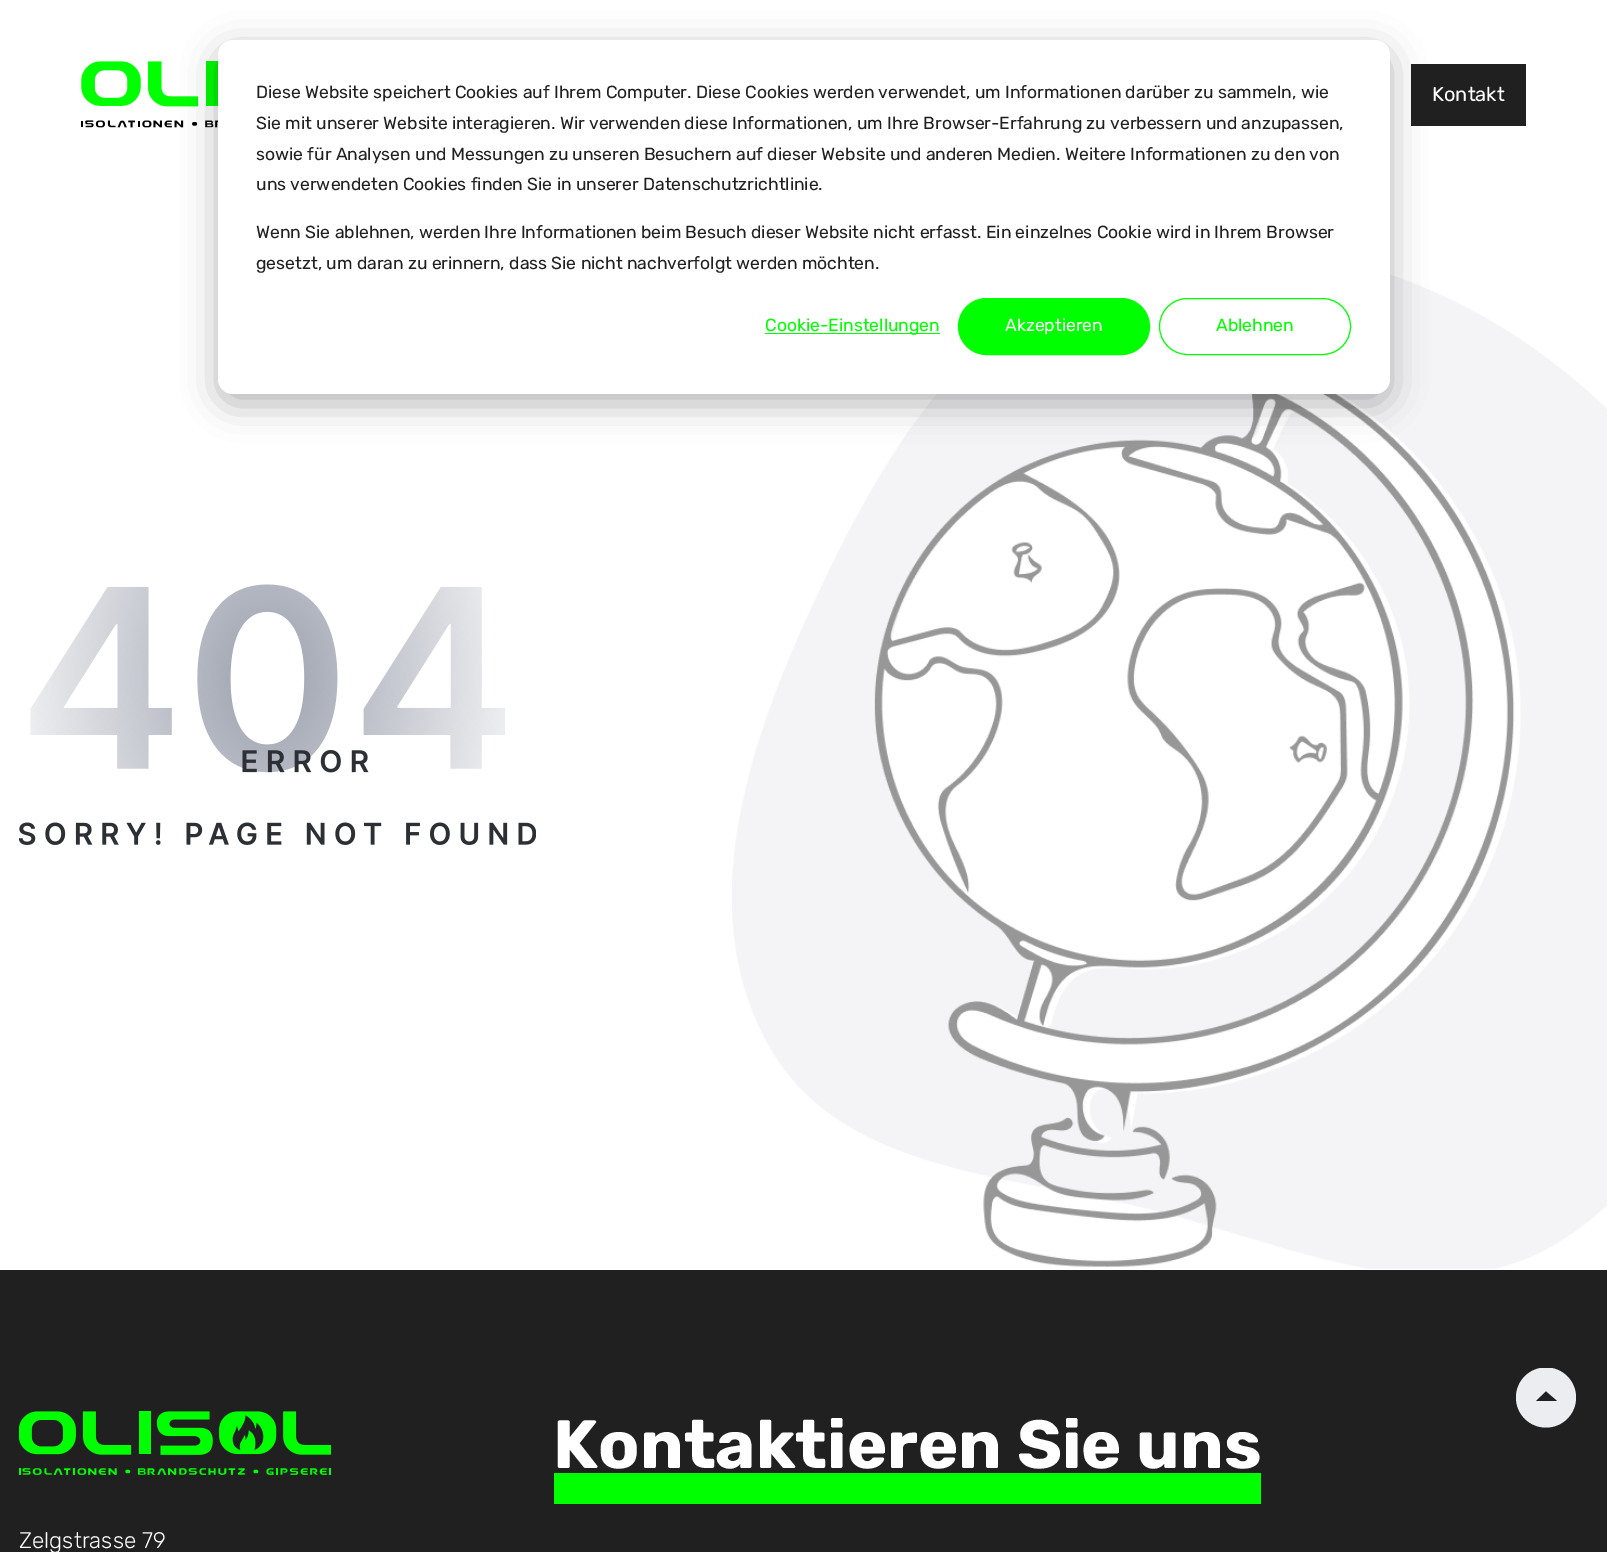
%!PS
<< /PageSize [1607 1552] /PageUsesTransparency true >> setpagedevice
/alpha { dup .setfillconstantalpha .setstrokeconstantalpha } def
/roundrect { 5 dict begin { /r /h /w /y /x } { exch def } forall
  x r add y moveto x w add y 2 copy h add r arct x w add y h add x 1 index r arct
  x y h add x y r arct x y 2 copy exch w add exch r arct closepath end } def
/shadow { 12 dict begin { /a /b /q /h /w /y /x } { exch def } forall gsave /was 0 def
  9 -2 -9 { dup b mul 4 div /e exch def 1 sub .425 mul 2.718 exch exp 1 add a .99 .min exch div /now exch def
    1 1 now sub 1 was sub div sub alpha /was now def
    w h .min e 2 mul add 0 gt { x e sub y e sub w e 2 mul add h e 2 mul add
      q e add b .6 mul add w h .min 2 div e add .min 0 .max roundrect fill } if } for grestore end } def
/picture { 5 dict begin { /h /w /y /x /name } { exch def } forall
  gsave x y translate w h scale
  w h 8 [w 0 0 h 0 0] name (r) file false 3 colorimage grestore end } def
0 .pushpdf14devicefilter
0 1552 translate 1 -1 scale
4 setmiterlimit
1 setgray
0 0 1607 1552 rectfill
(img1.rgb) 81 61 137 67 picture
0.125 setgray
1411 64 115 62 rectfill
(img2.rgb) 732 273 875 996 picture
0 setgray
218 50 1172 354 15 17.5 0.28 shadow
1 setgray
218 40 1172 354 15 roundrect fill
/Rubik-Regular [17.5 0 0 -17.5 0 0] selectfont
0.125 setgray
256 98 moveto (Diese Website speichert Cookies auf Ihrem Computer. Diese Cookies werden verwendet, um Informationen darüber zu sammeln, wie) show
256 129 moveto (Sie mit unserer Website interagieren. Wir verwenden diese Informationen, um Ihre Browser-Erfahrung zu verbessern und anzupassen,) show
256 160 moveto (sowie für Analysen und Messungen zu unseren Besuchern auf dieser Website und anderen Medien. Weitere Informationen zu den von) show
256 190 moveto (uns verwendeten Cookies finden Sie in unserer Datenschutzrichtlinie.) show
256 238 moveto (Wenn Sie ablehnen, werden Ihre Informationen beim Besuch dieser Website nicht erfasst. Ein einzelnes Cookie wird in Ihrem Browser) show
256 269 moveto (gesetzt, um daran zu erinnern, dass Sie nicht nachverfolgt werden möchten.) show
0 1 0 setrgbcolor
765 333 175 1 rectfill
765 331 moveto (Cookie-Einstellungen) show
958.5 298.5 191 56 28 roundrect gsave fill grestore
stroke
1 setgray
1005 331 moveto (Akzeptieren) show
0 1 0 setrgbcolor
1159.5 298.5 191 56 28 roundrect stroke
1216 331 moveto (Ablehnen) show
/Rubik-Regular [20 0 0 -20 0 0] selectfont
1 setgray
1432 101 moveto (Kontakt) show
(img3.rgb) 19 584 517 261 picture
0.125 setgray
0 1270 1607 282 rectfill
/Rubik-Bold [68.1 0 0 -68.1 0 0] selectfont
1 setgray
553 1468 moveto (Kontaktieren Sie uns) show
0 1 0 setrgbcolor
554 1473 707 31 rectfill
(img4.rgb) 19 1411 312 64 picture
/Rubik-Light [22.5 0 0 -22.5 0 0] selectfont
1 setgray
19 1548 moveto (Zelgstrasse 79) show
gsave
1516 1368 60 60 rectclip
0.922 0.929 0.941 setrgbcolor
newpath 1546 1397.5 30 0 360 arc closepath fill
grestore
0.125 setgray
newpath 1546 1391.5 moveto 1557 1401 lineto 1536 1401 lineto closepath fill
.poppdf14devicefilter showpage
